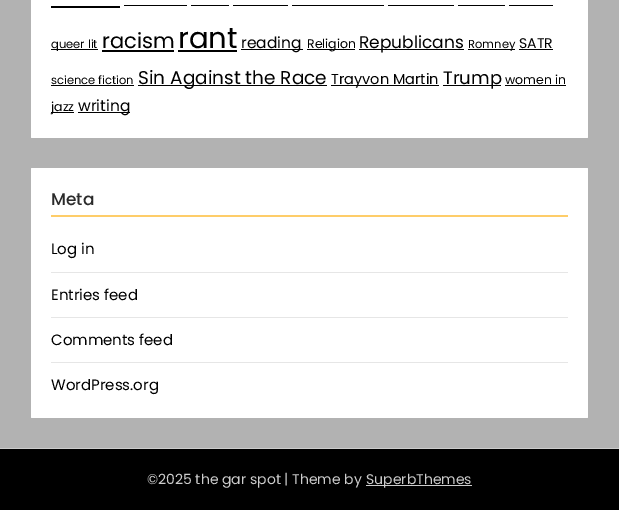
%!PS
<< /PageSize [619 510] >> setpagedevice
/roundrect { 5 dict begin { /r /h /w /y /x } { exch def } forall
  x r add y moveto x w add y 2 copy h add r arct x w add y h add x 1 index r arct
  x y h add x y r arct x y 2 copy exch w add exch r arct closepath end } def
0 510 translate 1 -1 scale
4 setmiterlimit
0.698 setgray
0 0 619 510 rectfill
1 setgray
31 -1 557 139 1 roundrect fill
0 setgray
124 5 63 1 rectfill
191 5 38 1 rectfill
233 5 55 1 rectfill
292 5 92 1 rectfill
388 5 66 1 rectfill
458 5 47 1 rectfill
509 5 44 1 rectfill
51 6 69 2 rectfill
51 49 47 1 rectfill
/Poppins-Regular [11.5 0 0 -11.5 0 0] selectfont
51 48 moveto (queer lit) show
/Poppins-Regular [21 0 0 -21 0 0] selectfont
102 48 moveto (racism) show
102 50 72 2 rectfill
/Poppins-Regular [29 0 0 -29 0 0] selectfont
178 48 moveto (rant) show
178 50 59 2 rectfill
241 49 62 1 rectfill
/Poppins-Regular [15.5 0 0 -15.5 0 0] selectfont
241 48 moveto (reading) show
307 49 48 1 rectfill
/Poppins-Regular [12.5 0 0 -12.5 0 0] selectfont
307 48 moveto (Religion) show
359 49 105 1 rectfill
/Poppins-Regular [17 0 0 -17 0 0] selectfont
359 48 moveto (Republicans) show
468 49 47 1 rectfill
/Poppins-Regular [11.5 0 0 -11.5 0 0] selectfont
468 48 moveto (Romney) show
/Poppins-Regular [14 0 0 -14 0 0] selectfont
519 48 moveto (SATR) show
519 49 34 1 rectfill
/Poppins-Regular [11.5 0 0 -11.5 0 0] selectfont
51 84 moveto (science fiction) show
51 85 83 1 rectfill
138 85 189 1 rectfill
/Poppins-Regular [18.5 0 0 -18.5 0 0] selectfont
138 84 moveto (Sin Against the Race) show
331 85 108 1 rectfill
/Poppins-Regular [14.5 0 0 -14.5 0 0] selectfont
331 84 moveto (Trayvon Martin) show
443 85 58 1 rectfill
/Poppins-Regular [18 0 0 -18 0 0] selectfont
443 84 moveto (Trump) show
/Poppins-Regular [12.5 0 0 -12.5 0 0] selectfont
505 84 moveto (women in) show
505 85 61 1 rectfill
51 112 23 1 rectfill
51 111 moveto (jazz) show
78 112 52 1 rectfill
/Poppins-Regular [15.5 0 0 -15.5 0 0] selectfont
78 111 moveto (writing) show
1 setgray
31 168 557 250 1 roundrect fill
0.996 0.804 0.412 setrgbcolor
51 215 517 2 rectfill
/Poppins-Medium [17 0 0 -17 0 0] selectfont
0.169 setgray
51 205 moveto (Meta) show
0.902 setgray
51 272 517 1 rectfill
/Poppins-Regular [15 0 0 -15 0 0] selectfont
0 setgray
51 254 moveto (Log in) show
0.902 setgray
51 317 517 1 rectfill
0 setgray
51 300 moveto (Entries feed) show
0.902 setgray
51 362 517 1 rectfill
0 setgray
51 345 moveto (Comments feed) show
51 390 moveto (WordPress.org) show
0 449 619 61 rectfill
0.8 setgray
0 448 619 1 rectfill
/Poppins-Regular [14 0 0 -14 0 0] selectfont
147 484 moveto (©2025 the gar spot | Theme by) show
366 485 106 1 rectfill
366 484 moveto (SuperbThemes) show
showpage
